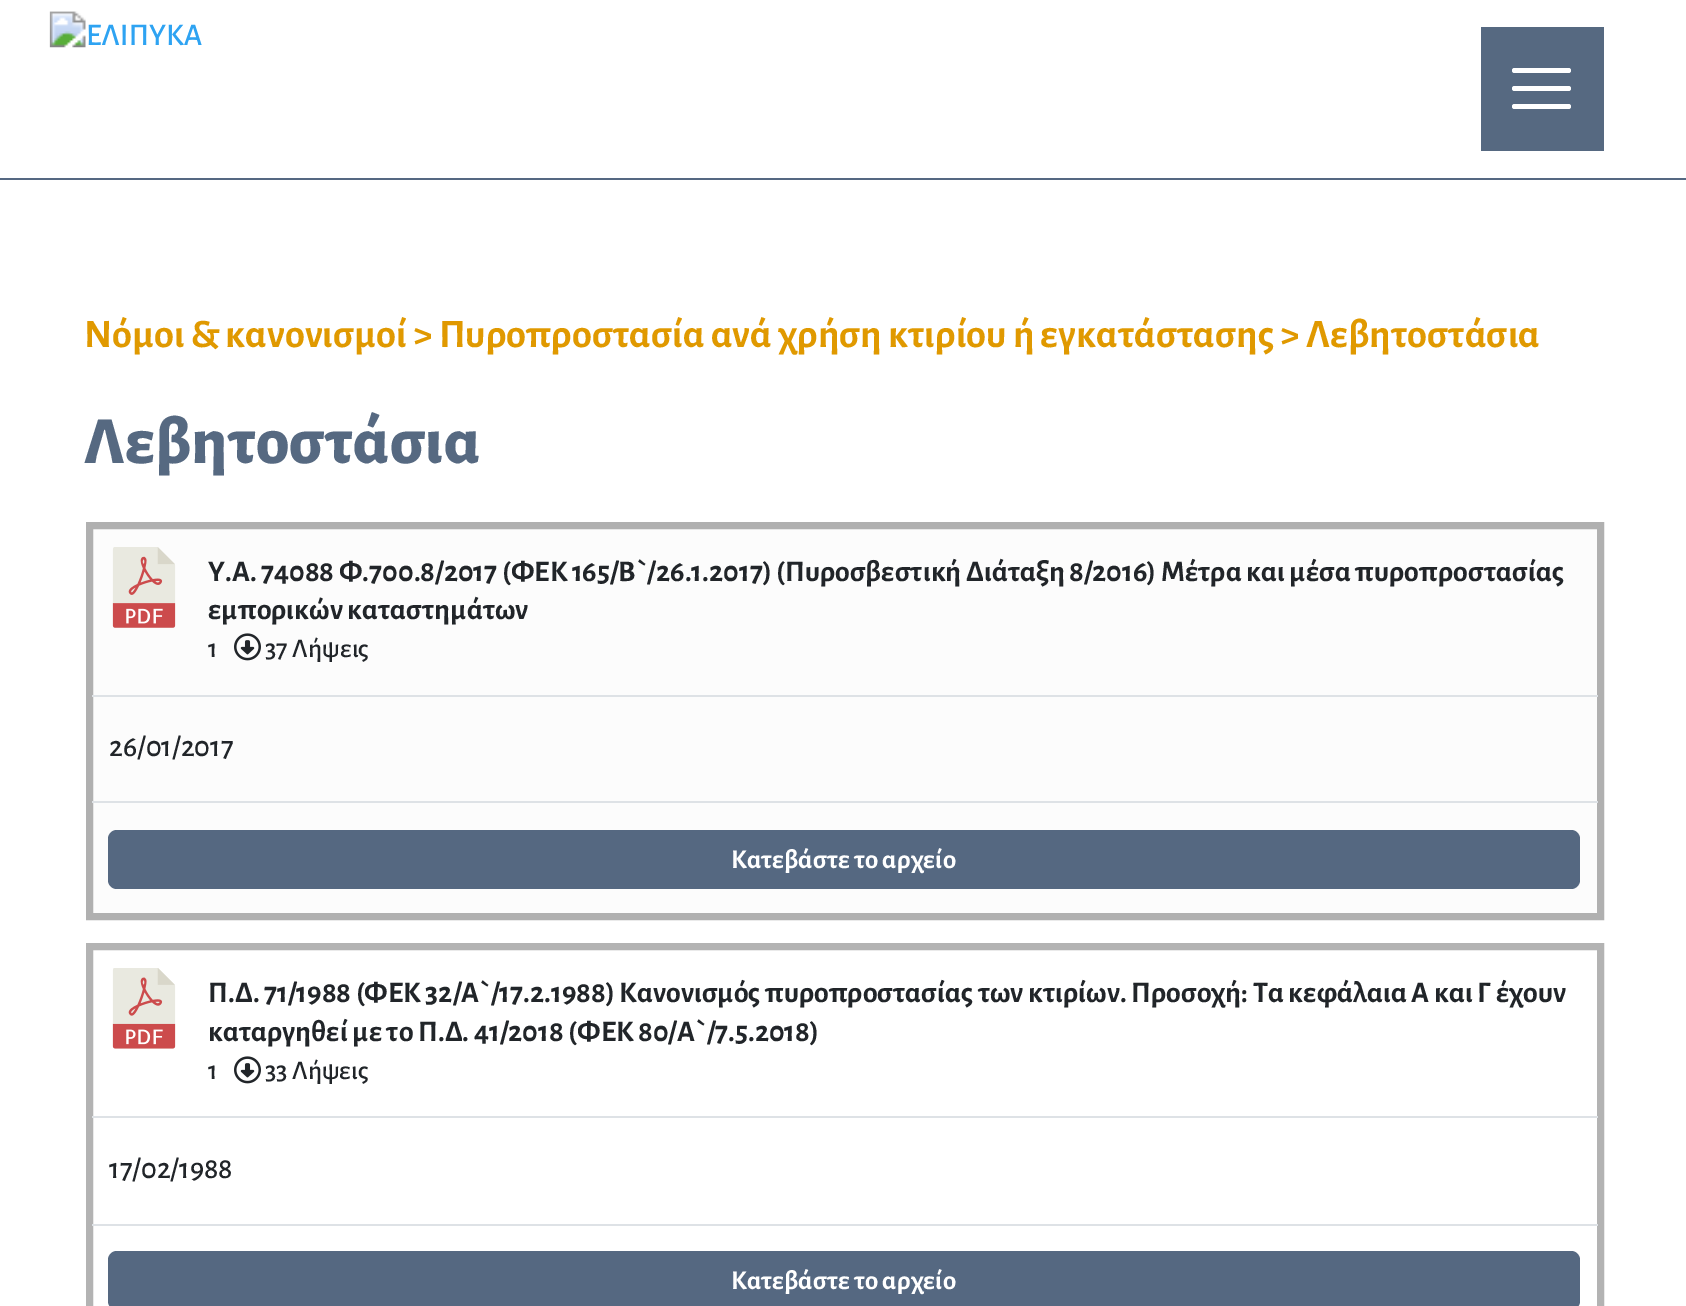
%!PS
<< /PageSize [1686 1306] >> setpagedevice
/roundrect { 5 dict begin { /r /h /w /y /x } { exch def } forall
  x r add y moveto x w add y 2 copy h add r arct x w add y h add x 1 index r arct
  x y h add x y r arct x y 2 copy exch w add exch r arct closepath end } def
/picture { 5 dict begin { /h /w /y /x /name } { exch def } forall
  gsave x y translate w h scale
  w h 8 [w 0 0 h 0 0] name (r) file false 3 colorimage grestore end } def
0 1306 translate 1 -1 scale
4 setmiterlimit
1 setgray
0 0 1686 1306 rectfill
0.337 0.412 0.506 setrgbcolor
1481 27 123 124 rectfill
1 setgray
1512 86 59 5 2.5 roundrect fill
1512 68 59 5 2.5 roundrect fill
1512 104 59 5 2.5 roundrect fill
0.333 0.408 0.51 setrgbcolor
0 178 1686 2 rectfill
(img1.rgb) 49 11 153 37 picture
/AlegreyaSans-Bold [40.5 0 0 -40.5 0 0] selectfont
0.878 0.6 0 setrgbcolor
84 347 moveto (Νόμοι & κανονισμοί > Πυροπροστασία ανά χρήση κτιρίου ή εγκατάστασης > Λεβητοστάσια) show
/AlegreyaSans-ExtraBold [67.5 0 0 -67.5 0 0] selectfont
0.337 0.412 0.506 setrgbcolor
84 463 moveto (Λεβητοστάσια) show
0.988 setgray
newpath 89.5 525.5 moveto 1600.5 525.5 lineto 1600.5 916.5 lineto 89.5 916.5 lineto closepath gsave fill grestore
0.69 setgray
7 setlinewidth
stroke
(img2.rgb) 112 547 64 81 picture
/AlegreyaSans-Bold [30 0 0 -30 0 0] selectfont
0.129 0.145 0.161 setrgbcolor
208 581 moveto (Υ.Α. 74088 Φ.700.8/2017 \(ΦΕΚ 165/Β`/26.1.2017\) \(Πυροσβεστική Διάταξη 8/2016\) Μέτρα και μέσα πυροπροστασίας) show
208 619 moveto (εμπορικών καταστημάτων) show
/AlegreyaSans-Medium [27 0 0 -27 0 0] selectfont
208 657 moveto (1) show
(img3.rgb) 234 633 27 28 picture
265 657 moveto (37 Λήψεις) show
0.871 0.886 0.902 setrgbcolor
92 695 1506 2 rectfill
/AlegreyaSans-Medium [30 0 0 -30 0 0] selectfont
0.129 0.145 0.161 setrgbcolor
109 756 moveto (26/01/2017) show
0.871 0.886 0.902 setrgbcolor
92 801 1506 2 rectfill
0.333 0.408 0.506 setrgbcolor
108 830 1472 59 9 roundrect fill
/AlegreyaSans-Bold [27 0 0 -27 0 0] selectfont
1 setgray
731 868 moveto (Κατεβάστε το αρχείο) show
0.702 setgray
89.5 946.5 1511 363 rectstroke
(img4.rgb) 112 968 64 81 picture
/AlegreyaSans-Bold [30 0 0 -30 0 0] selectfont
0.129 0.145 0.161 setrgbcolor
208 1002 moveto (Π.Δ. 71/1988 \(ΦΕΚ 32/Α`/17.2.1988\) Κανονισμός πυροπροστασίας των κτιρίων. Προσοχή: Τα κεφάλαια Α και Γ έχουν) show
208 1041 moveto (καταργηθεί με το Π.Δ. 41/2018 \(ΦΕΚ 80/Α`/7.5.2018\)) show
/AlegreyaSans-Medium [27 0 0 -27 0 0] selectfont
208 1079 moveto (1) show
(img5.rgb) 234 1056 27 28 picture
265 1079 moveto (33 Λήψεις) show
0.871 0.886 0.902 setrgbcolor
92 1116 1506 2 rectfill
/AlegreyaSans-Medium [30 0 0 -30 0 0] selectfont
0.129 0.145 0.161 setrgbcolor
109 1178 moveto (17/02/1988) show
0.871 0.886 0.902 setrgbcolor
92 1224 1506 2 rectfill
0.333 0.408 0.506 setrgbcolor
108 1251 1472 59 9 roundrect fill
/AlegreyaSans-Bold [27 0 0 -27 0 0] selectfont
1 setgray
731 1289 moveto (Κατεβάστε το αρχείο) show
showpage
